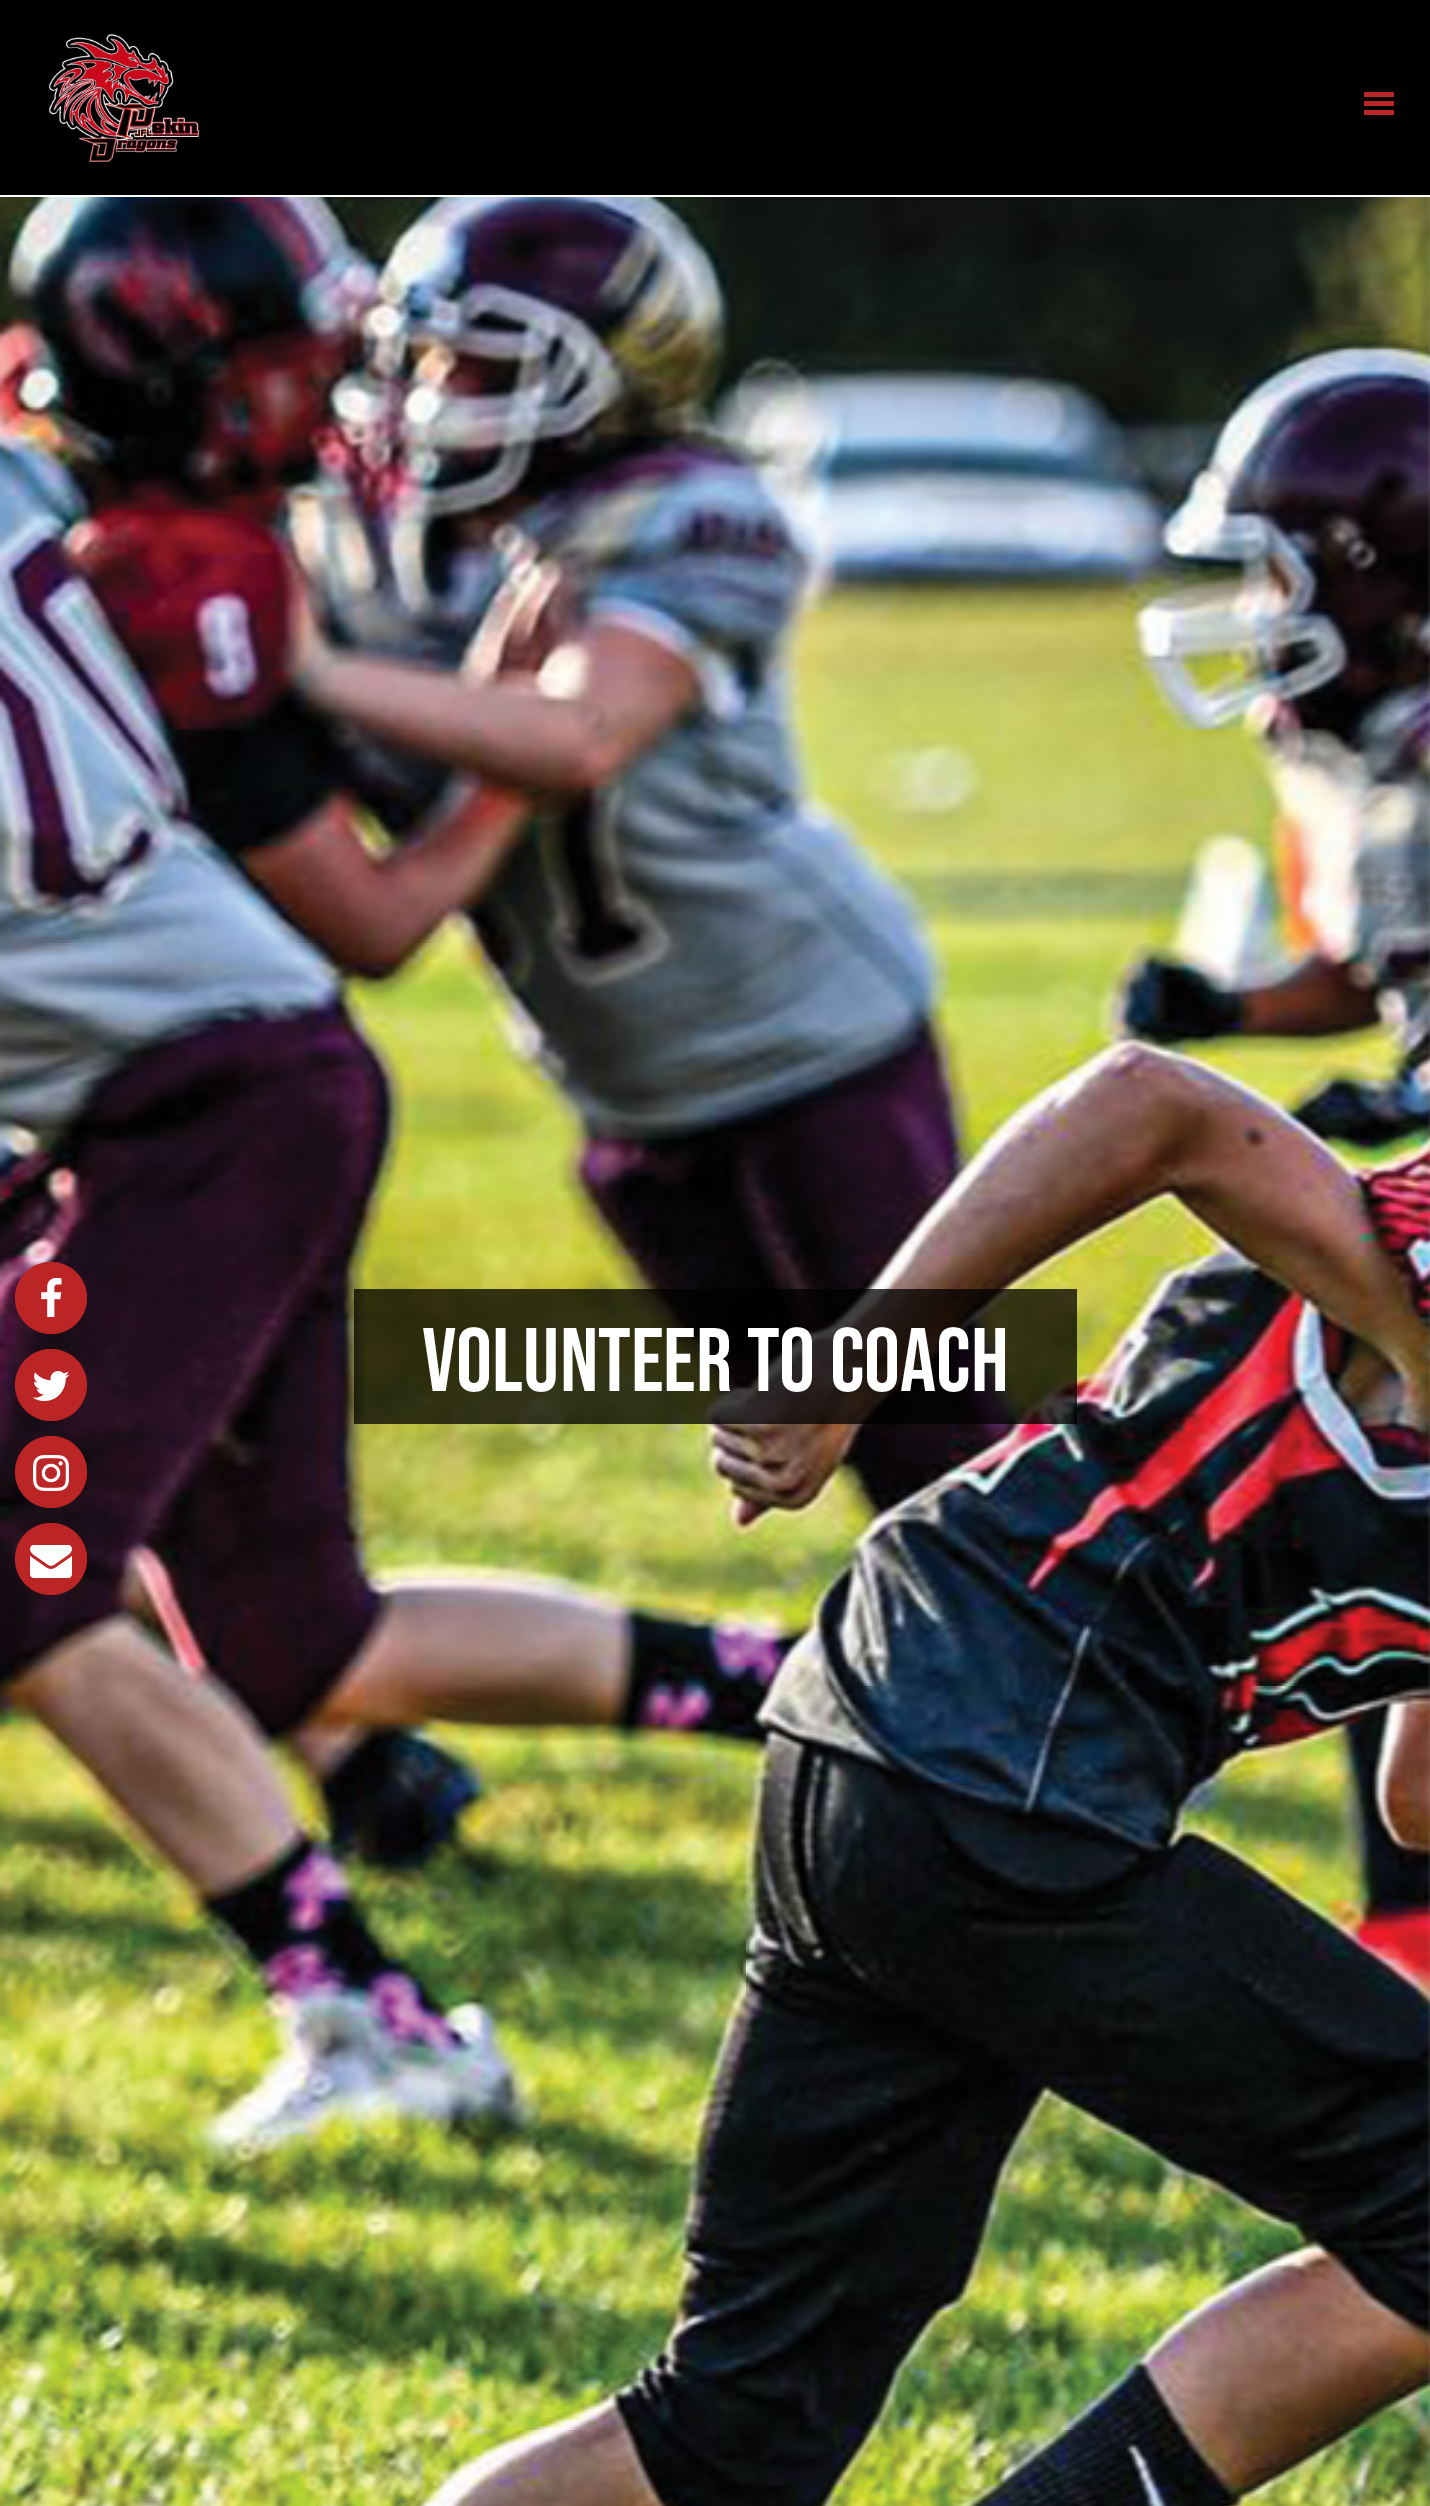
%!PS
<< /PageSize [1430 2506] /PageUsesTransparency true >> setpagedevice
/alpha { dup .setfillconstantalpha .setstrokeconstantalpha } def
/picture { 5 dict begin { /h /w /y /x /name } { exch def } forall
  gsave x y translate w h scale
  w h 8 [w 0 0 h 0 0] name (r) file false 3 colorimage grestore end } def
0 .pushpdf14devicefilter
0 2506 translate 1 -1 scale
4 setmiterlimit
1 setgray
0 0 1430 2506 rectfill
(img6.rgb) 0 197 1430 2309 picture
0.737 0.145 0.145 setrgbcolor
newpath 51 1298 36 0 360 arc closepath fill
(img1.rgb) 41 1278 21 39 picture
newpath 51 1385 36 0 360 arc closepath fill
(img2.rgb) 32 1371 38 30 picture
newpath 51 1472 36 0 360 arc closepath fill
(img3.rgb) 33 1455 36 36 picture
newpath 51 1559 36 0 360 arc closepath fill
(img4.rgb) 30 1545 42 33 picture
0 setgray
0 0 1430 195 rectfill
(img5.rgb) 48 34 155 131 picture
0.737 0.145 0.145 setrgbcolor
1364 101 30 5 rectfill
1364 92 30 5 rectfill
1364 110 30 5 rectfill
0.75 alpha
0 setgray
354 1289 723 135 rectfill
/BebasNeue-Regular [90 0 0 -90 0 0] selectfont
1 alpha
1 setgray
422 1391 moveto (Volunteer to Coach) show
.poppdf14devicefilter showpage
